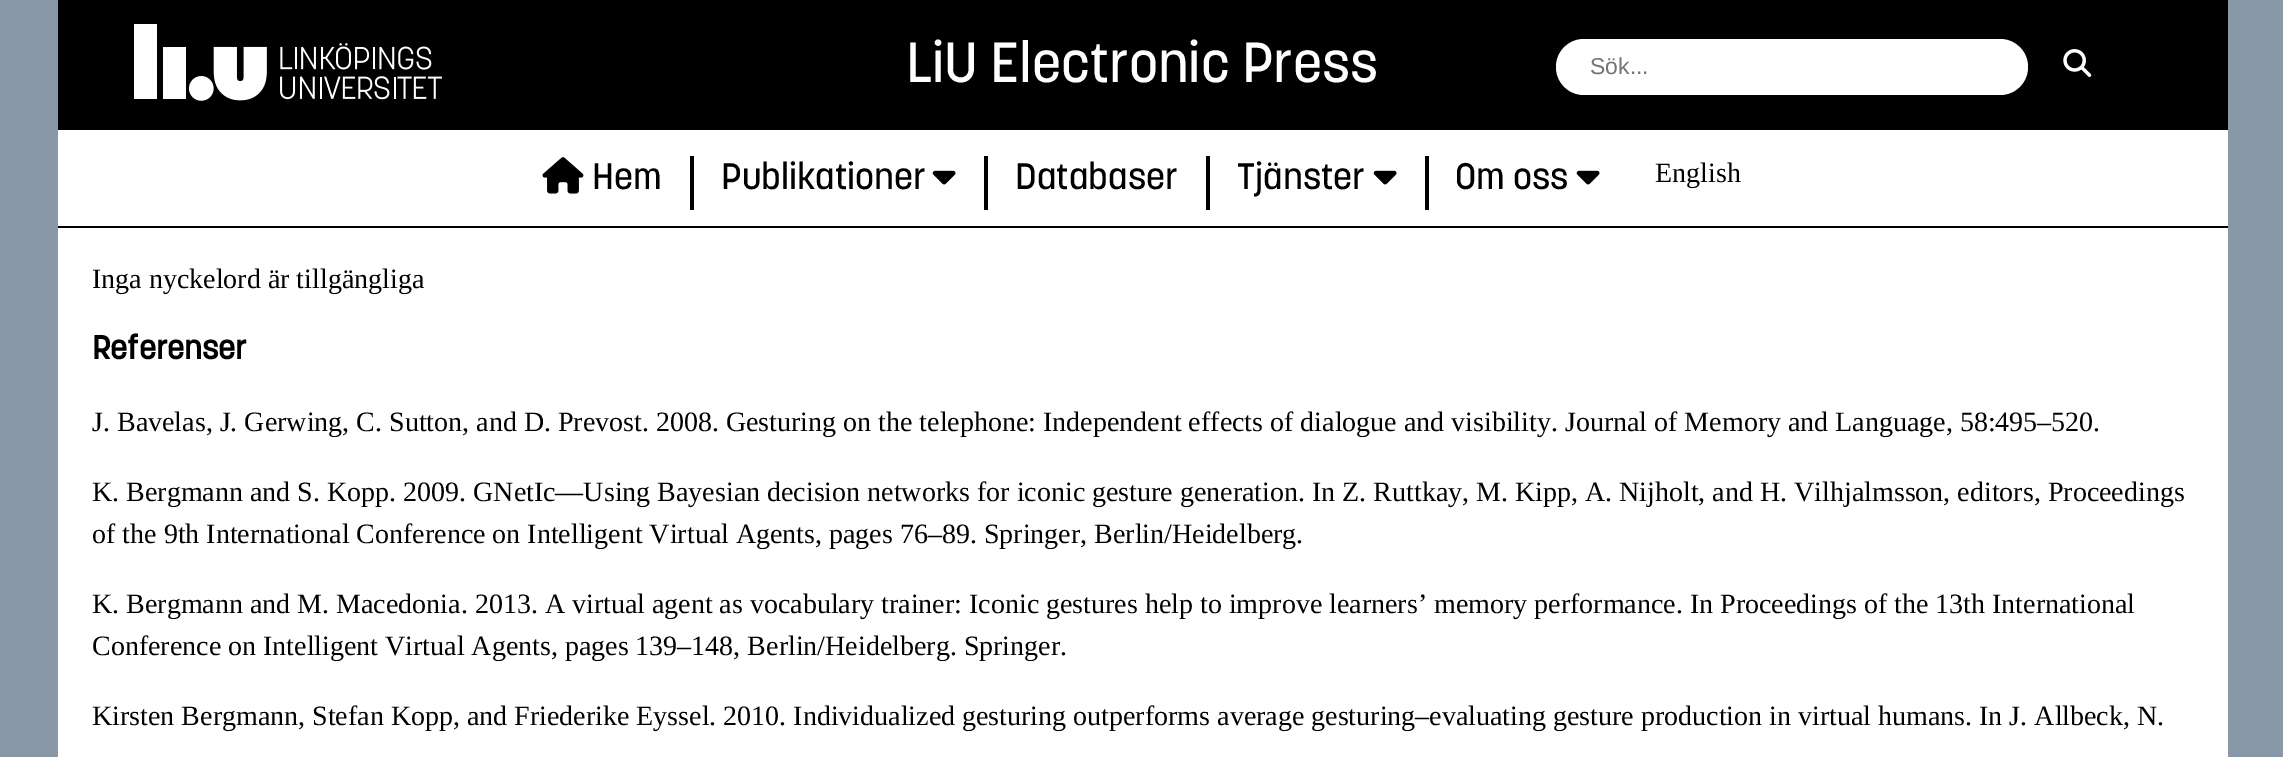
%!PS
<< /PageSize [2283 757] >> setpagedevice
/roundrect { 5 dict begin { /r /h /w /y /x } { exch def } forall
  x r add y moveto x w add y 2 copy h add r arct x w add y h add x 1 index r arct
  x y h add x y r arct x y 2 copy exch w add exch r arct closepath end } def
/picture { 5 dict begin { /h /w /y /x /name } { exch def } forall
  gsave x y translate w h scale
  w h 8 [w 0 0 h 0 0] name (r) file false 3 colorimage grestore end } def
0 757 translate 1 -1 scale
4 setmiterlimit
0.533 0.596 0.655 setrgbcolor
0 0 2283 757 rectfill
0 setgray
58 0 2170 130 rectfill
(img1.rgb) 134 24 308 77 picture
/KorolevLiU-Medium [56 0 0 -56 0 0] selectfont
1 setgray
906 82 moveto (LiU Electronic Press) show
1556 39 472 56 28 roundrect fill
/LiberationSans-Regular [23 0 0 -23 0 0] selectfont
0.459 setgray
1590 74 moveto (Sök...) show
(img2.rgb) 2063 49 29 28 picture
1 setgray
58 130 2170 96 rectfill
0 setgray
58 226 2170 2 rectfill
(img3.rgb) 542 157 42 37 picture
/KorolevLiU-Medium [36.5 0 0 -36.5 0 0] selectfont
592 189 moveto (Hem) show
690 156 4 54 rectfill
721 189 moveto (Publikationer) show
(img4.rgb) 932 170 24 15 picture
984 156 4 54 rectfill
1015 189 moveto (Databaser) show
1206 156 4 54 rectfill
1237 189 moveto (Tjänster) show
(img4.rgb) 1373 170 24 15 picture
1425 156 4 54 rectfill
1455 189 moveto (Om oss) show
(img4.rgb) 1576 170 24 15 picture
/LiberationSerif-Regular [28 0 0 -28 0 0] selectfont
1655 182 moveto (English) show
1 setgray
58 228 2170 529 rectfill
0 setgray
92 288 moveto (Inga nyckelord är tillgängliga) show
/KorolevLiU-Bold [32.75 0 0 -32.75 0 0] selectfont
92 359 moveto (Referenser) show
/LiberationSerif-Regular [28 0 0 -28 0 0] selectfont
92 431 moveto (J. Bavelas, J. Gerwing, C. Sutton, and D. Prevost. 2008. Gesturing on the telephone: Independent effects of dialogue and visibility. Journal of Memory and Language, 58:495–520.) show
92 501 moveto (K. Bergmann and S. Kopp. 2009. GNetIc—Using Bayesian decision networks for iconic gesture generation. In Z. Ruttkay, M. Kipp, A. Nijholt, and H. Vilhjalmsson, editors, Proceedings) show
92 543 moveto (of the 9th International Conference on Intelligent Virtual Agents, pages 76–89. Springer, Berlin/Heidelberg.) show
92 613 moveto (K. Bergmann and M. Macedonia. 2013. A virtual agent as vocabulary trainer: Iconic gestures help to improve learners’ memory performance. In Proceedings of the 13th International) show
92 655 moveto (Conference on Intelligent Virtual Agents, pages 139–148, Berlin/Heidelberg. Springer.) show
92 725 moveto (Kirsten Bergmann, Stefan Kopp, and Friederike Eyssel. 2010. Individualized gesturing outperforms average gesturing–evaluating gesture production in virtual humans. In J. Allbeck, N.) show
showpage
